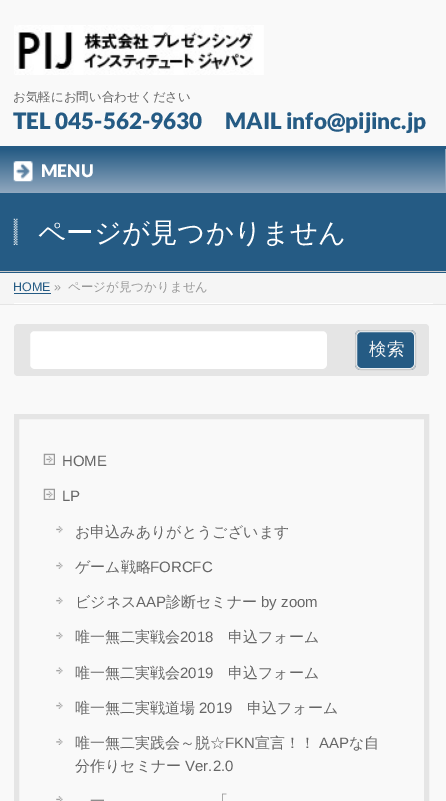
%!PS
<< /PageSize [446 801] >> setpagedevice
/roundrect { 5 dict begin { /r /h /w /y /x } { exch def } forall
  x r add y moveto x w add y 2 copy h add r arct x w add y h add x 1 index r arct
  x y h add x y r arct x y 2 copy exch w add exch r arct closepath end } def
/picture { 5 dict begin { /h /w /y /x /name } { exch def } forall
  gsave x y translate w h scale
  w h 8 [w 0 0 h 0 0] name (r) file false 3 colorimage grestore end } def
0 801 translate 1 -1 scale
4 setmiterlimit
0.976 setgray
0 0 446 801 rectfill
(img1.rgb) 14 25 250 50 picture
/WenQuanYiZenHei-Medium [12.5 0 0 -12.5 0 0] selectfont
0.4 setgray
13 101 moveto (お気軽にお問い合わせください) show
/Lato-Black [22.5 0 0 -22.5 0 0] selectfont
0.145 0.357 0.518 setrgbcolor
13 129 moveto (TEL 045-562-9630) show
225 129 moveto (MAIL info@pijinc.jp) show
0 146 446 3 rectfill
gsave newpath 0 149 moveto 445 149 lineto 445 193 lineto 0 193 lineto closepath clip newpath
<< /ShadingType 2 /ColorSpace /DeviceRGB /Coords [223 149 223 193] /Extend [true true] /Function << /FunctionType 2 /Domain [0 1] /C0 [0.145 0.357 0.518] /C1 [0.569 0.659 0.749] /N 1 >> >> shfill grestore
0.569 0.659 0.749 setrgbcolor
445 149 1 44 rectfill
(img2.rgb) 13 161 20 21 picture
/Lato-Black [17.5 0 0 -17.5 0 0] selectfont
1 setgray
41 177 moveto (MENU) show
0.145 0.357 0.518 setrgbcolor
0 193 446 80 rectfill
0.8 setgray
0 271 446 1 rectfill
(img3.rgb) 13 218 5 27 picture
/WenQuanYiZenHei-Medium [27.5 0 0 -27.5 0 0] selectfont
1 setgray
38 242 moveto (ページが見つかりません) show
0.961 setgray
0 273 446 31 rectfill
0.898 setgray
0 304 446 1 rectfill
1 setgray
14 303 419 1 rectfill
/LiberationSans-Regular [12.5 0 0 -12.5 0 0] selectfont
0.145 0.357 0.518 setrgbcolor
13 291 moveto (HOME) show
14 293 37 1 rectfill
0.6 setgray
54 291 moveto (») show
/WenQuanYiZenHei-Medium [12.5 0 0 -12.5 0 0] selectfont
68 291 moveto (ページが見つかりません) show
0.898 setgray
14 324 415 52 4 roundrect fill
1 setgray
29.5 330.5 298 39 4.5 roundrect gsave fill grestore
0.898 setgray
stroke
0.145 0.357 0.518 setrgbcolor
355 330 61 40 6 roundrect fill
0.914 0.937 0.953 setrgbcolor
356.5 331.5 58 37 4.5 roundrect stroke
0.8 setgray
355.5 330.5 60 39 5.5 roundrect stroke
/WenQuanYiZenHei-Medium [17.5 0 0 -17.5 0 0] selectfont
0.961 setgray
369 355 moveto (検索) show
0.898 setgray
5 setlinewidth
16.5 416.5 410 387 rectstroke
(img4.rgb) 43 453 12 12 picture
/LiberationSans-Regular [15 0 0 -15 0 0] selectfont
0.4 setgray
62 466 moveto (HOME) show
(img4.rgb) 43 488 12 12 picture
62 501 moveto (LP) show
(img5.rgb) 56 526 7 7 picture
/WenQuanYiZenHei-Medium [15 0 0 -15 0 0] selectfont
75 537 moveto (お申込みありがとうございます) show
(img6.rgb) 56 562 7 7 picture
75 572 moveto (ゲーム戦略) show
/LiberationSans-Regular [15 0 0 -15 0 0] selectfont
150 572 moveto (FORCFC) show
(img6.rgb) 56 597 7 7 picture
/WenQuanYiZenHei-Medium [15 0 0 -15 0 0] selectfont
75 607 moveto (ビジネス) show
/LiberationSans-Regular [15 0 0 -15 0 0] selectfont
136 607 moveto (AAP) show
/WenQuanYiZenHei-Medium [15 0 0 -15 0 0] selectfont
166 607 moveto (診断セミナー) show
/LiberationSans-Regular [15 0 0 -15 0 0] selectfont
261 607 moveto (by zoom) show
(img6.rgb) 56 632 7 7 picture
/WenQuanYiZenHei-Medium [15 0 0 -15 0 0] selectfont
75 642 moveto (唯一無二実戦会) show
/LiberationSans-Regular [15 0 0 -15 0 0] selectfont
180 642 moveto (2018) show
/WenQuanYiZenHei-Medium [15 0 0 -15 0 0] selectfont
228 642 moveto (申込フォーム) show
(img6.rgb) 56 667 7 7 picture
75 678 moveto (唯一無二実戦会) show
/LiberationSans-Regular [15 0 0 -15 0 0] selectfont
180 678 moveto (2019) show
/WenQuanYiZenHei-Medium [15 0 0 -15 0 0] selectfont
228 678 moveto (申込フォーム) show
(img6.rgb) 56 702 7 7 picture
75 713 moveto (唯一無二実戦道場) show
/LiberationSans-Regular [15 0 0 -15 0 0] selectfont
199 713 moveto (2019) show
/WenQuanYiZenHei-Medium [15 0 0 -15 0 0] selectfont
247 713 moveto (申込フォーム) show
(img7.rgb) 56 738 7 7 picture
75 748 moveto (唯一無二実践会～脱☆) show
/LiberationSans-Regular [15 0 0 -15 0 0] selectfont
225 748 moveto (FKN) show
/WenQuanYiZenHei-Medium [15 0 0 -15 0 0] selectfont
255 748 moveto (宣言！！) show
/LiberationSans-Regular [15 0 0 -15 0 0] selectfont
319 748 moveto (AAP) show
/WenQuanYiZenHei-Medium [15 0 0 -15 0 0] selectfont
349 748 moveto (な自) show
75 771 moveto (分作りセミナー) show
/LiberationSans-Regular [15 0 0 -15 0 0] selectfont
185 771 moveto (Ver.2.0) show
(img8.rgb) 56 796 7 5 picture
/WenQuanYiZenHei-Medium [15 0 0 -15 0 0] selectfont
90 806 moveto (一) show
213 806 moveto (「) show
showpage
